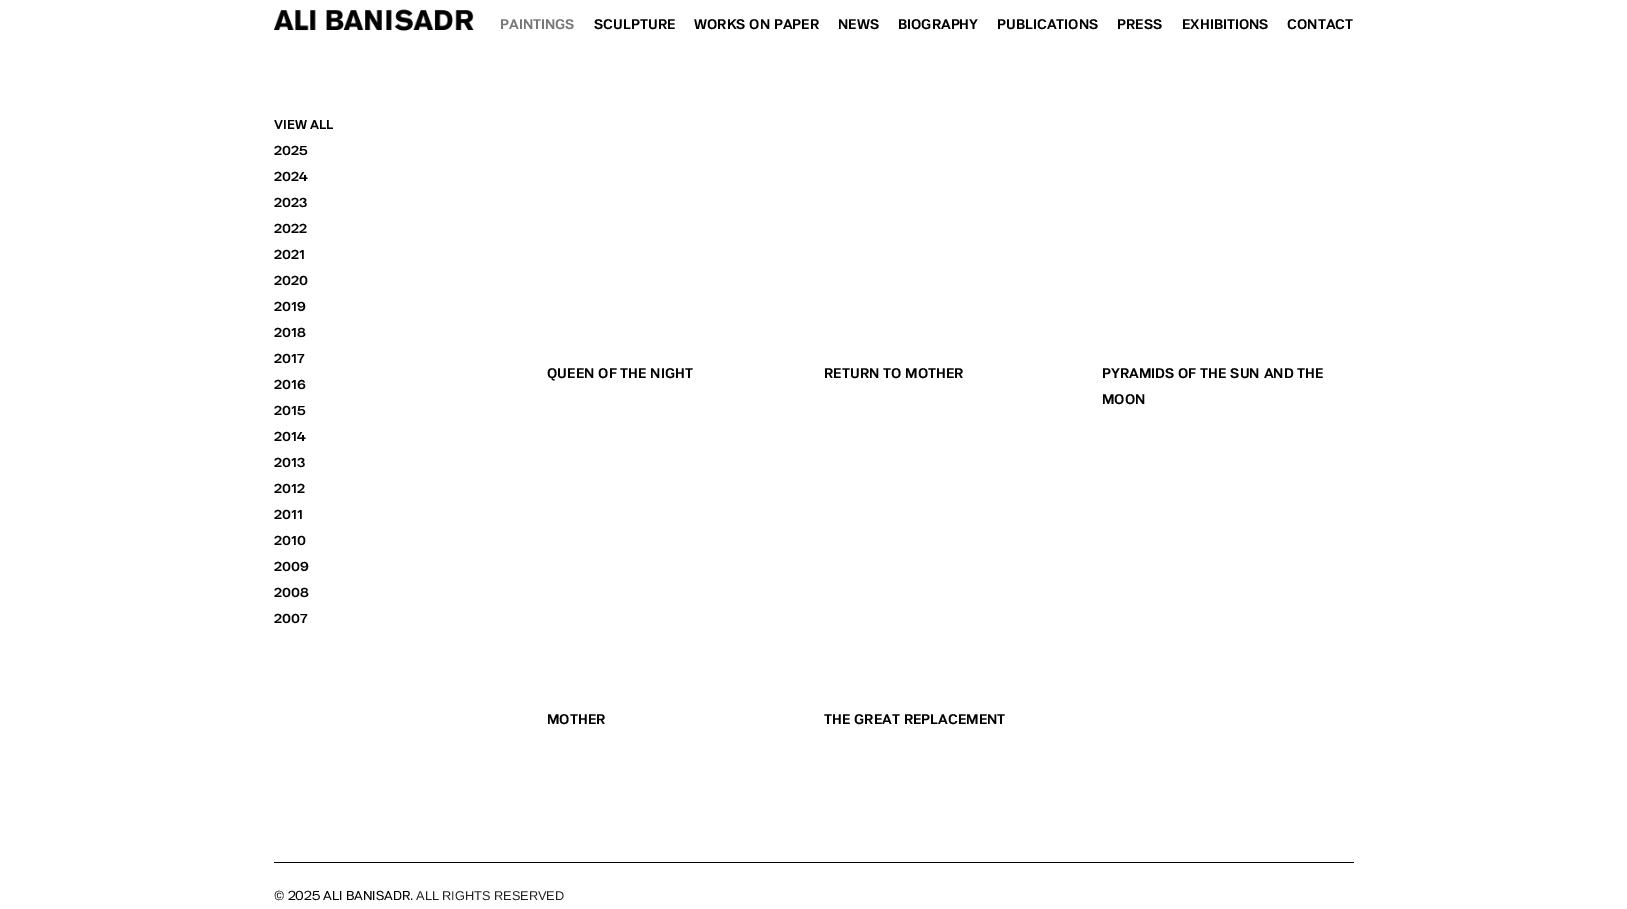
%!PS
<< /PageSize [1627 909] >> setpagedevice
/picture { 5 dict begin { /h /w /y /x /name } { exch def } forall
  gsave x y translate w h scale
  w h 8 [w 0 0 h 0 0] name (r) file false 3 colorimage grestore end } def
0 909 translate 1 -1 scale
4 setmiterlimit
1 setgray
0 0 1627 909 rectfill
(img1.rgb) 274 9 200 22 picture
/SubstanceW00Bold-Bold [14 0 0 -14 0 0] selectfont
0.467 setgray
500 29 moveto (PAINTINGS) show
0 setgray
594 29 moveto (SCULPTURE) show
694 29 moveto (WORKS ON PAPER) show
838 29 moveto (NEWS) show
898 29 moveto (BIOGRAPHY) show
997 29 moveto (PUBLICATIONS) show
1117 29 moveto (PRESS) show
1182 29 moveto (EXHIBITIONS) show
1287 29 moveto (CONTACT) show
/SubstanceW00Bold-Bold [13 0 0 -13 0 0] selectfont
274 129 moveto (VIEW ALL) show
274 155 moveto (2025) show
274 181 moveto (2024) show
274 207 moveto (2023) show
274 233 moveto (2022) show
274 259 moveto (2021) show
274 285 moveto (2020) show
274 311 moveto (2019) show
274 337 moveto (2018) show
274 363 moveto (2017) show
274 389 moveto (2016) show
274 415 moveto (2015) show
274 441 moveto (2014) show
274 467 moveto (2013) show
274 493 moveto (2012) show
274 519 moveto (2011) show
274 545 moveto (2010) show
274 571 moveto (2009) show
274 597 moveto (2008) show
274 623 moveto (2007) show
/SubstanceW00Bold-Bold [14 0 0 -14 0 0] selectfont
547 378 moveto (QUEEN OF THE NIGHT) show
824 378 moveto (RETURN TO MOTHER) show
1102 378 moveto (PYRAMIDS OF THE SUN AND THE) show
1102 404 moveto (MOON) show
547 724 moveto (MOTHER) show
824 724 moveto (THE GREAT REPLACEMENT) show
274 862 1080 1 rectfill
/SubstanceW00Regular-Regular [13 0 0 -13 0 0] selectfont
274 900 moveto (© 2025 ALI BANISADR.) show
/LiberationSans-Regular [12.75 0 0 -12.75 0 0] selectfont
0.133 setgray
416 900 moveto (ALL RIGHTS RESERVED) show
showpage
